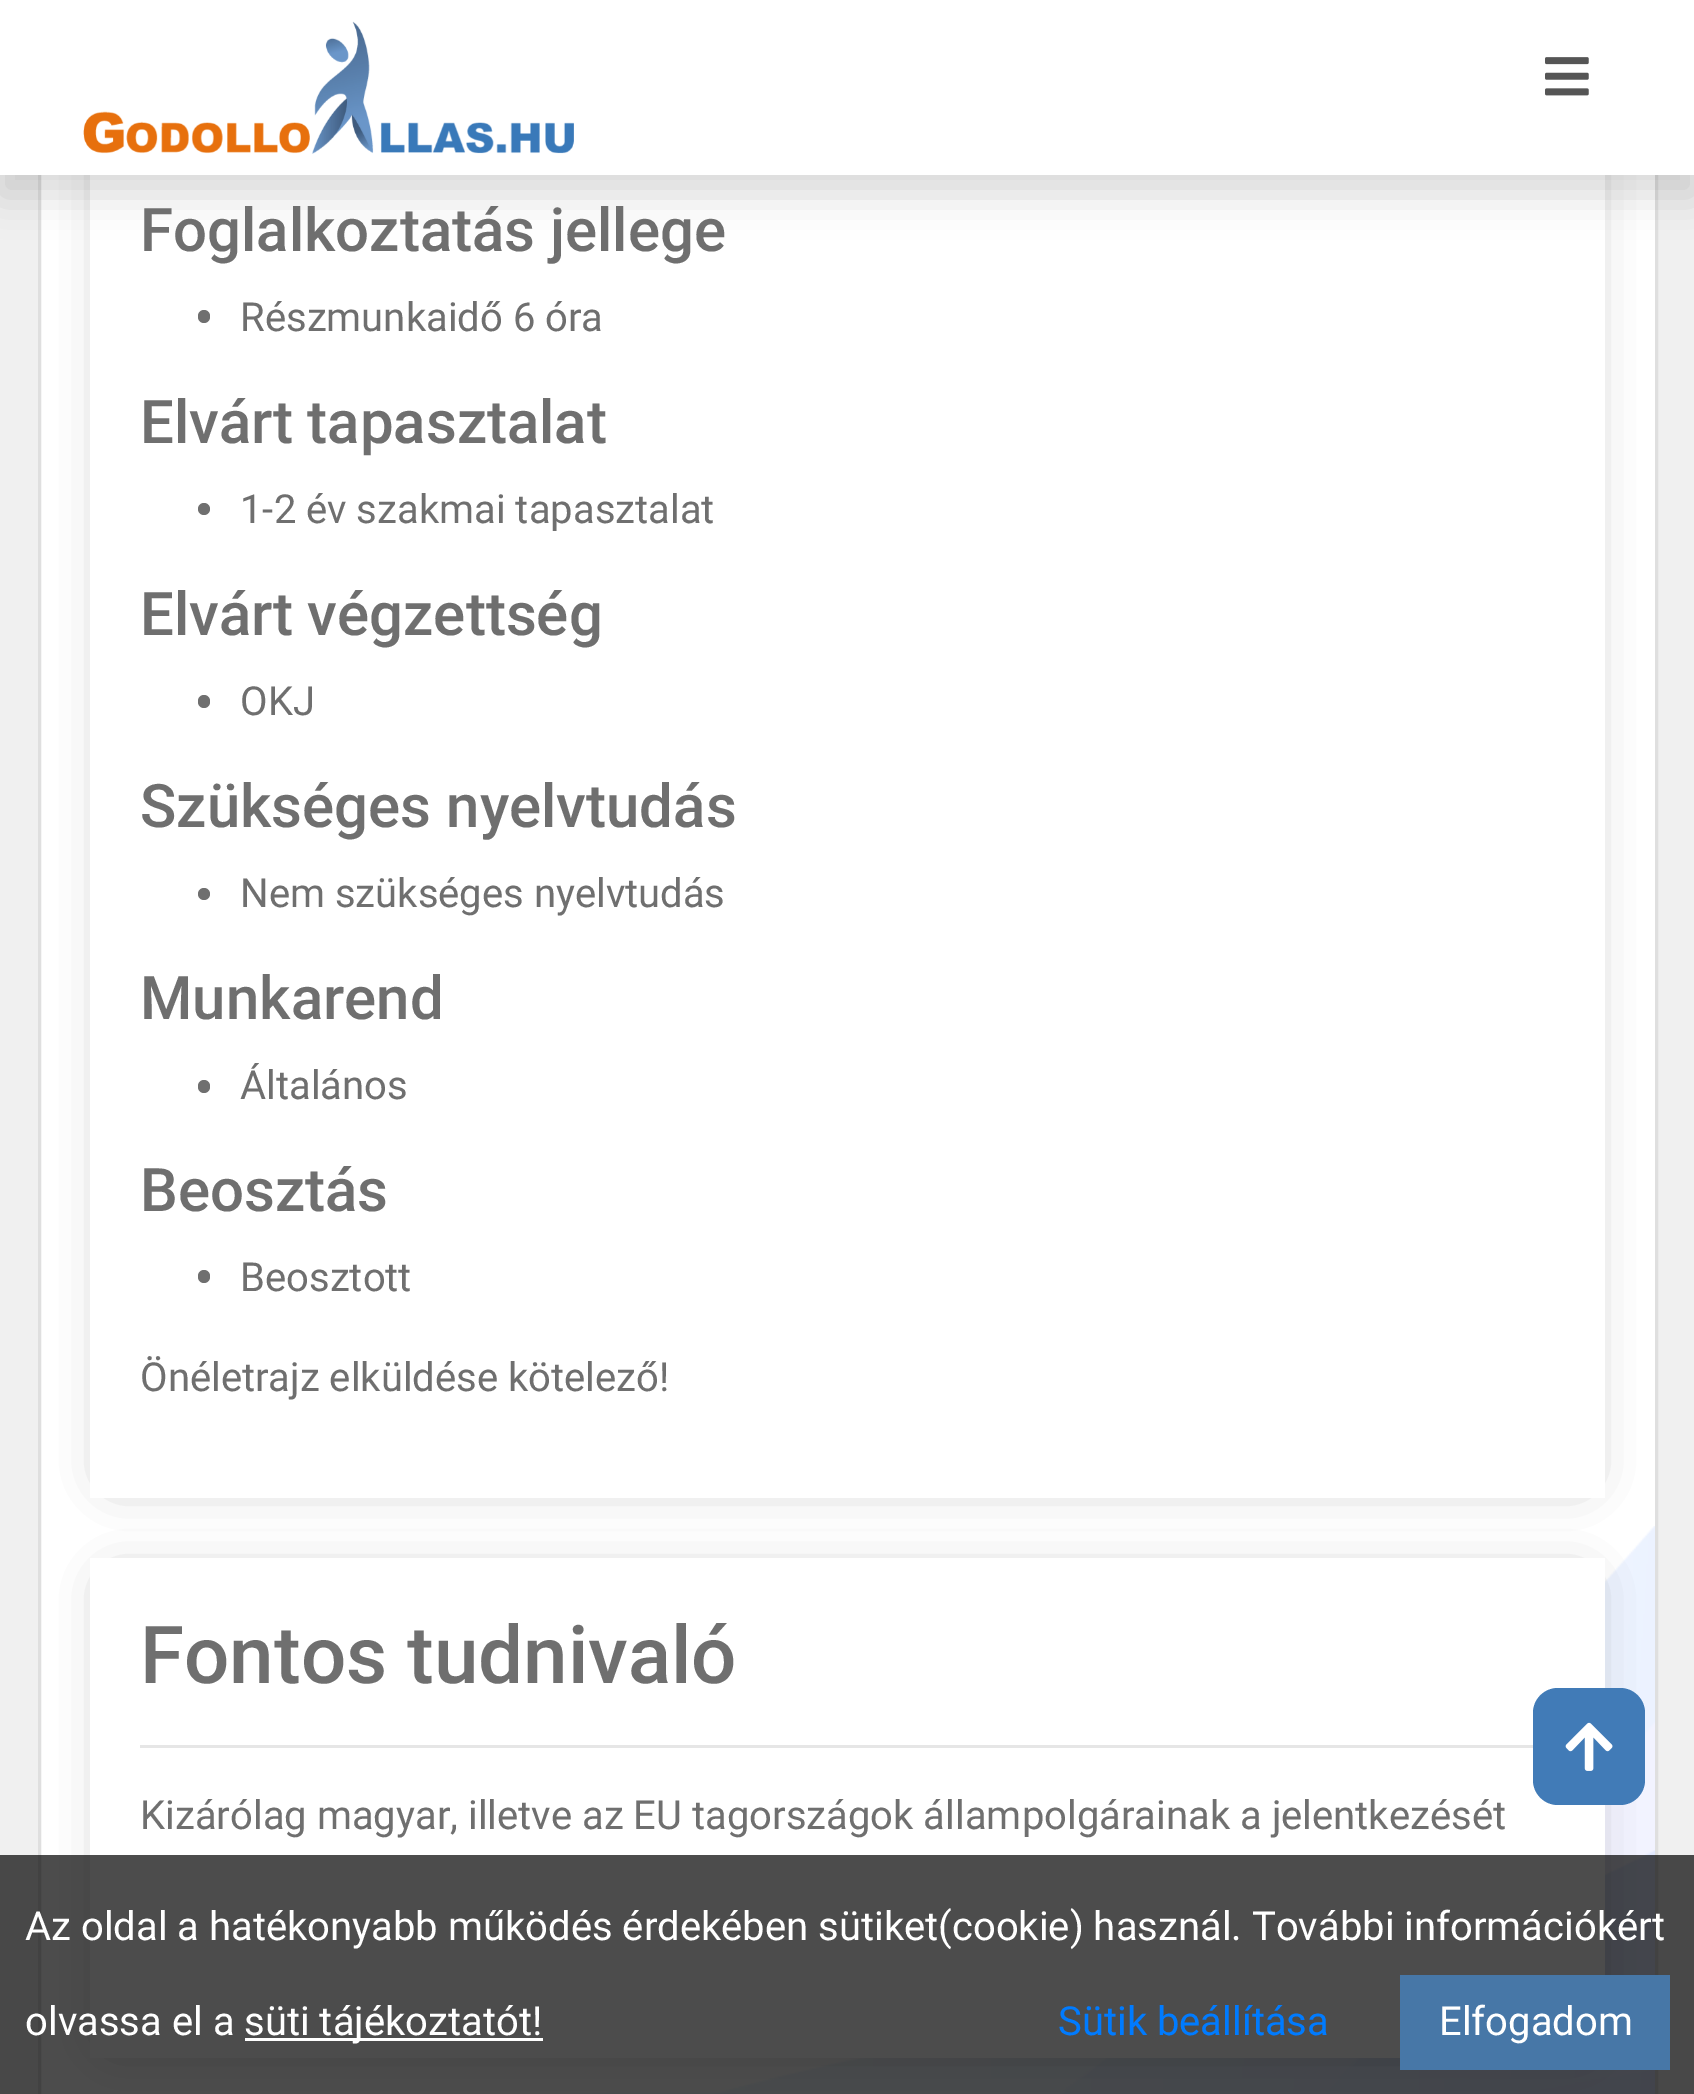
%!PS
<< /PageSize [1694 2094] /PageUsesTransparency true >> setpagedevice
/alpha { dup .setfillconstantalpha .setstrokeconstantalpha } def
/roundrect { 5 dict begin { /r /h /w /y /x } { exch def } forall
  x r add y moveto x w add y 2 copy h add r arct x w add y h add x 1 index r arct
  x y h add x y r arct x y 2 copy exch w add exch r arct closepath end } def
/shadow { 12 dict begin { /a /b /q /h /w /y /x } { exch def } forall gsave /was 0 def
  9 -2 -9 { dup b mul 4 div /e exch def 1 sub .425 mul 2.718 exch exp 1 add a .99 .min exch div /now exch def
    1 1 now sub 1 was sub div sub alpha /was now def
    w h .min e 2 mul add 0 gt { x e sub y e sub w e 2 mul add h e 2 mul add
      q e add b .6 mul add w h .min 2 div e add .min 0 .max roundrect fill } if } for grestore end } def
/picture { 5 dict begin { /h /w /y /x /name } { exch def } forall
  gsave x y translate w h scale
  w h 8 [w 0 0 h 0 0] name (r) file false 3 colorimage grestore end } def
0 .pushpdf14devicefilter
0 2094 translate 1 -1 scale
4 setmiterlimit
0.941 setgray
0 0 1694 2094 rectfill
1 setgray
41 175 1614 1919 rectfill
0.875 setgray
3 setlinewidth
39.5 -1.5 1617 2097 rectstroke
(img3.rgb) 570 1526 1085 568 picture
0 setgray
115 8 1465 1467 0 25 0.38 shadow
1 setgray
90 175 1515 1323 rectfill
0 setgray
0 20 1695 175 0 20 0.15 shadow
1 setgray
0 0 1694 175 rectfill
(img1.rgb) 83 21 491 133 picture
(img2.rgb) 1545 57 44 39 picture
/Roboto-Medium [60 0 0 -60 0 0] selectfont
0.435 setgray
140 251 moveto (Foglalkoztatás jellege) show
198 310 12 13 6 roundrect fill
/Roboto-Regular [40 0 0 -40 0 0] selectfont
240 331 moveto (Részmunkaidő 6 óra) show
/Roboto-Medium [60 0 0 -60 0 0] selectfont
140 443 moveto (Elvárt tapasztalat) show
newpath 204 509 6 0 360 arc closepath fill
/Roboto-Regular [40 0 0 -40 0 0] selectfont
240 523 moveto (1-2 év szakmai tapasztalat) show
/Roboto-Medium [60 0 0 -60 0 0] selectfont
140 635 moveto (Elvárt végzettség) show
198 695 12 13 6 roundrect fill
/Roboto-Regular [40 0 0 -40 0 0] selectfont
240 715 moveto (OKJ) show
/Roboto-Medium [60 0 0 -60 0 0] selectfont
140 827 moveto (Szükséges nyelvtudás) show
newpath 204 894 6 0 360 arc closepath fill
/Roboto-Regular [40 0 0 -40 0 0] selectfont
240 907 moveto (Nem szükséges nyelvtudás) show
/Roboto-Medium [60 0 0 -60 0 0] selectfont
140 1019 moveto (Munkarend) show
198 1080 12 13 6 roundrect fill
/Roboto-Regular [40 0 0 -40 0 0] selectfont
240 1099 moveto (Általános) show
/Roboto-Medium [60 0 0 -60 0 0] selectfont
140 1211 moveto (Beosztás) show
198 1270 12 13 6 roundrect fill
/Roboto-Regular [40 0 0 -40 0 0] selectfont
240 1291 moveto (Beosztott) show
140 1391 moveto (Önéletrajz elküldése kötelező!) show
0 setgray
115 1585 1465 450 0 25 0.38 shadow
1 setgray
90 1558 1515 500 rectfill
/Roboto-Medium [80 0 0 -80 0 0] selectfont
0.435 setgray
140 1683 moveto (Fontos tudnivaló) show
0.902 setgray
140 1745 1393 3 rectfill
/Roboto-Regular [40 0 0 -40 0 0] selectfont
0.435 setgray
140 1829 moveto (Kizárólag magyar, illetve az EU tagországok állampolgárainak a jelentkezését) show
0.7 alpha
0 setgray
0 1855 1694 239 rectfill
1 alpha
1 setgray
25 1940 moveto (Az oldal a hatékonyabb működés érdekében sütiket\(cookie\) használ. További információkért) show
25 2035 moveto (olvassa el a) show
245 2038 298 3 rectfill
244 2035 moveto (süti tájékoztatót!) show
0 0.482 1 setrgbcolor
1058 2035 moveto (Sütik beállítása) show
0.278 0.467 0.655 setrgbcolor
1400 1975 270 95 rectfill
1 setgray
1439 2035 moveto (Elfogadom) show
0.255 0.482 0.718 setrgbcolor
1533 1688 112 117 25 roundrect fill
(img4.rgb) 1565 1722 48 49 picture
.poppdf14devicefilter showpage
